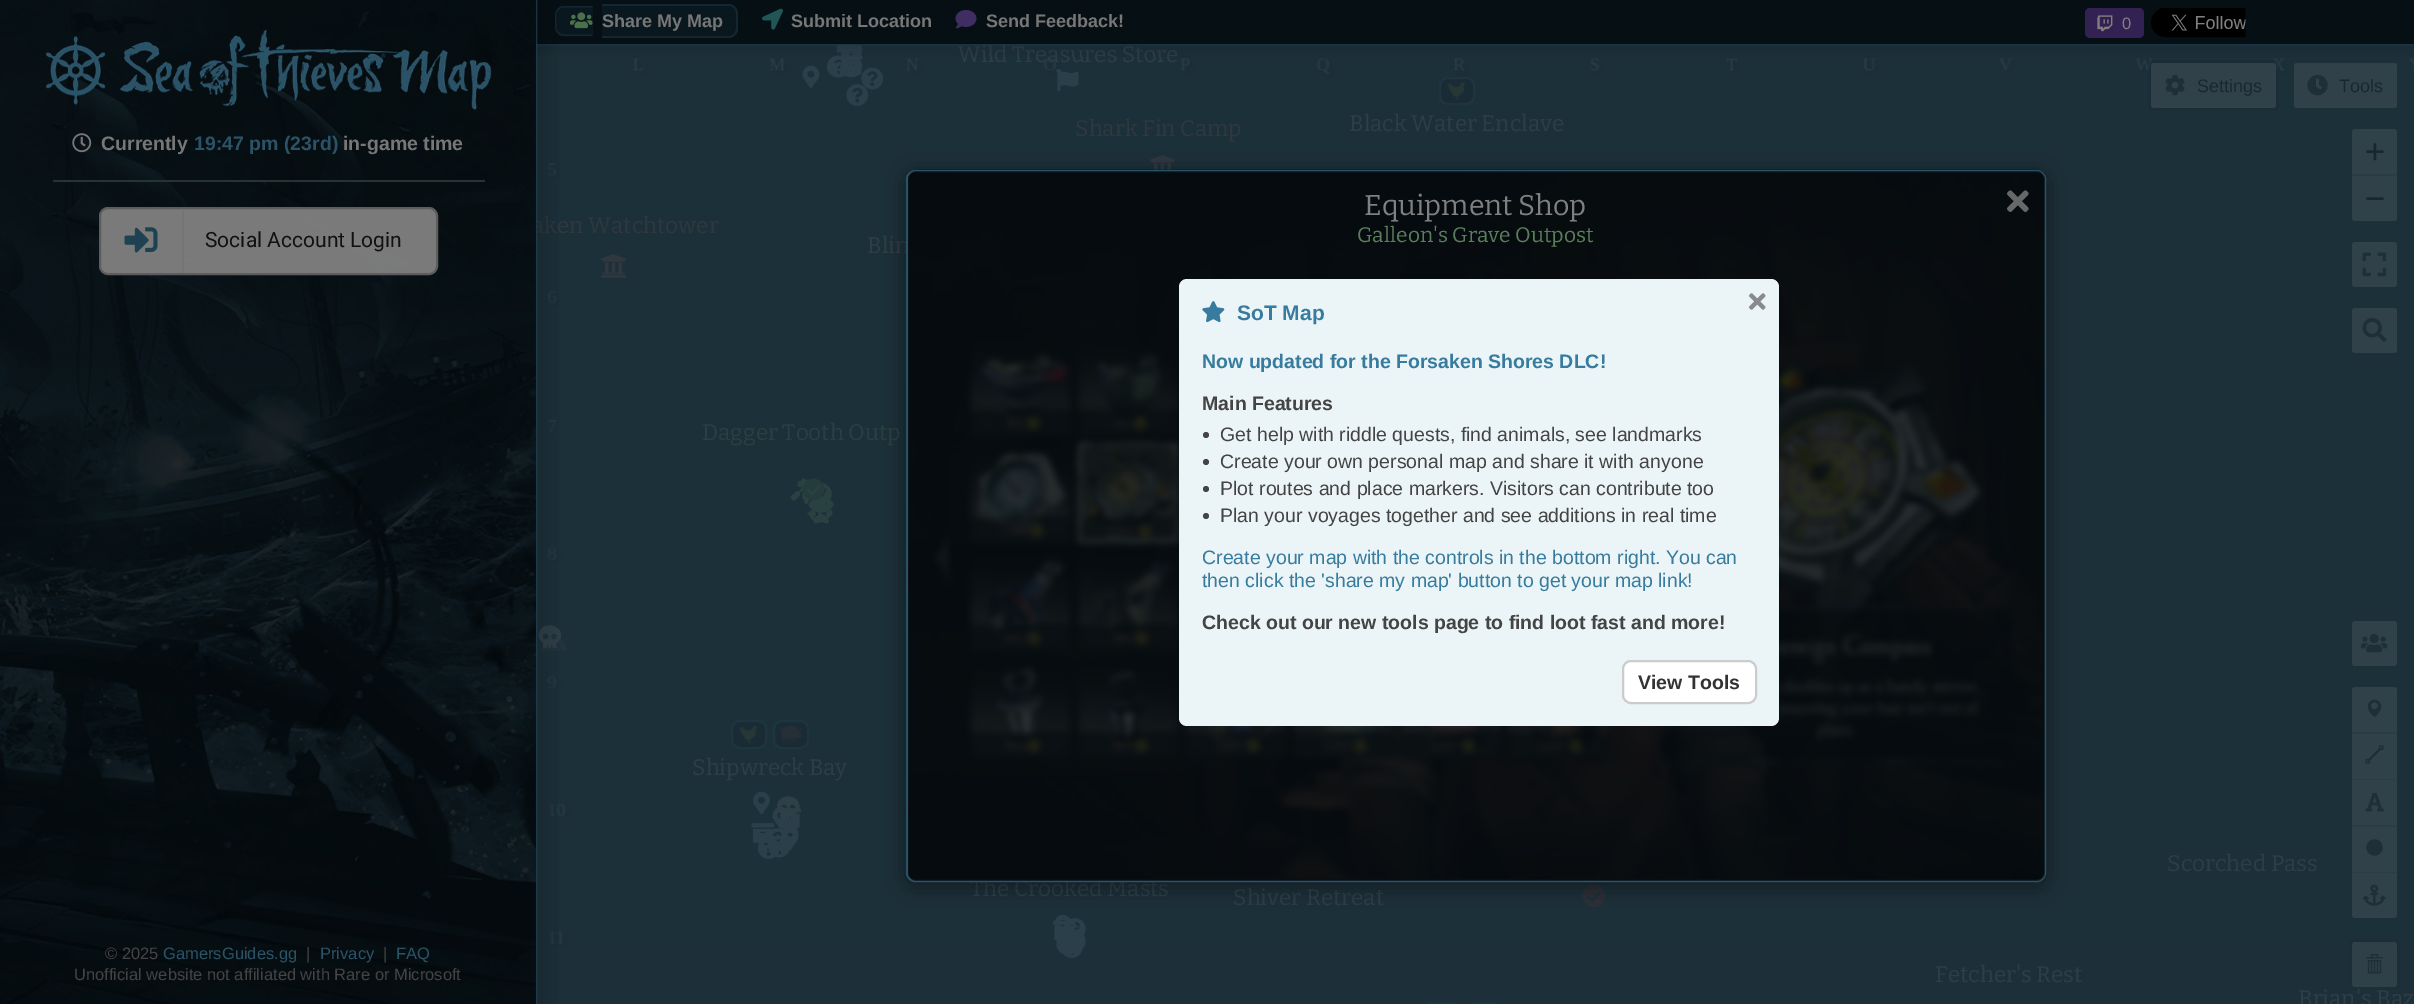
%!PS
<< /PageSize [2414 1004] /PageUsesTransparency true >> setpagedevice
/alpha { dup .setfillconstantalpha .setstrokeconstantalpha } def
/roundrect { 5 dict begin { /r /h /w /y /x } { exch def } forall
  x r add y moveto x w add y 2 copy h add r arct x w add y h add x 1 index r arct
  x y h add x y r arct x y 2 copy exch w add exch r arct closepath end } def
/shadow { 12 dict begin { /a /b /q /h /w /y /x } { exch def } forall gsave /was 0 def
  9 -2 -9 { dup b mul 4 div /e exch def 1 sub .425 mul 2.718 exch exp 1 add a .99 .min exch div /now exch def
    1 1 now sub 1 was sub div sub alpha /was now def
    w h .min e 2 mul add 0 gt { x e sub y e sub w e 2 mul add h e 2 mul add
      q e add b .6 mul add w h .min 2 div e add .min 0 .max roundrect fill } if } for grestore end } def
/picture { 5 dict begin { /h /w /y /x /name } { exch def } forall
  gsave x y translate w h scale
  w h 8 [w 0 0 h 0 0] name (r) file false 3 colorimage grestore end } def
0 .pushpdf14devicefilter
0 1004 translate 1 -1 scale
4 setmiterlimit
0.024 0.059 0.078 setrgbcolor
0 0 2414 1004 rectfill
0.035 0.09 0.118 setrgbcolor
newpath 564 6 moveto 593 6 lineto 593 36 lineto 564 36 lineto 559 36 555 32 555 27 curveto 555 15 lineto 555 10 559 6 564 6 curveto closepath fill
0.071 0.153 0.196 setrgbcolor
newpath 564 6 moveto 592.5 6 lineto 592.5 36 lineto 564 36 lineto 559 36 555 32 555 27 curveto 555 15 lineto 555 10 559 6 564 6 curveto closepath 564 7.5 moveto 592.5 7.5 lineto 592.5 34.5 lineto 564 34.5 lineto 560 34.5 556.5 31 556.5 27 curveto 556.5 15 lineto 556.5 11 560 7.5 564 7.5 curveto closepath eofill
0.114 0.188 0.227 setrgbcolor
536 45 1878 959 rectfill
(img12.rgb) 836 45 21 8 picture
(img58.rgb) 547 58 1867 891 picture
(img16.rgb) 840 55 23 20 picture
(img14.rgb) 840 45 23 16 picture
(img18.rgb) 840 55 23 23 picture
(img13.rgb) 826 55 19 23 picture
gsave
536 45 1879 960 rectclip
/Bitter-Thin [22.5 0 0 -22.5 0 0] selectfont
0.18 0.243 0.275 setrgbcolor
958 62 moveto (Wild Treasures Store) show
grestore
(img15.rgb) 832 55 18 23 picture
(img7.rgb) 536 44 1878 13 picture
gsave
536 45 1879 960 rectclip
/Bitter-Thin [22.5 0 0 -22.5 0 0] selectfont
0.184 0.216 0.247 setrgbcolor
532 233 moveto (aken Watchtower) show
grestore
(img35.rgb) 538 633 30 18 picture
(img34.rgb) 538 625 23 23 picture
(img1.rgb) 536 0 23 1004 picture
0.035 0.09 0.118 setrgbcolor
newpath 602 5 moveto 729 5 lineto 734 5 738 9 738 14 curveto 738 29 lineto 738 34 734 38 729 38 curveto 602 38 lineto closepath fill
0.071 0.153 0.196 setrgbcolor
newpath 602 4 moveto 729 4 lineto 734 4 738 9 738 14 curveto 738 28 lineto 738 33 734 38 729 38 curveto 602 38 lineto closepath 602 6 moveto 729 6 lineto 733 6 736 9 736 14 curveto 736 28 lineto 736 33 733 36 729 36 curveto 602 36 lineto closepath eofill
(img2.rgb) 570 12 23 17 picture
/LiberationSans-Bold [18 0 0 -18 0 0] selectfont
0.467 setgray
602 27 moveto (Share My Map) show
(img3.rgb) 762 8 21 22 picture
791 27 moveto (Submit Location) show
(img4.rgb) 955 9 22 20 picture
986 27 moveto (Send Feedback!) show
0.196 0.129 0.322 setrgbcolor
2085 8 59 30 5 roundrect fill
(img5.rgb) 2097 15 16 17 picture
/LiberationSans-Regular [16.5 0 0 -16.5 0 0] selectfont
0.502 setgray
2122 29 moveto (0) show
(img6.rgb) 2151 8 95 30 picture
(img8.rgb) 0 0 536 1004 picture
(img9.rgb) 45 30 447 80 picture
(img10.rgb) 72 133 20 20 picture
/LiberationSans-Bold [19.5 0 0 -19.5 0 0] selectfont
0.467 setgray
101 150 moveto (Currently) show
0.169 0.325 0.404 setrgbcolor
194 150 moveto (19:47 pm \(23rd\)) show
0.467 setgray
343 150 moveto (in-game time) show
0.149 0.204 0.208 setrgbcolor
53 180 432 2 rectfill
0.95 alpha
0.502 setgray
100 208 337 66 8 roundrect fill
1 alpha
0.365 setgray
2 setlinewidth
100 208 337 66 8 roundrect stroke
(img11.rgb) 124 227 34 26 picture
0.451 0.459 0.463 setrgbcolor
182 209 2 64 rectfill
/Roboto-Regular [21 0 0 -21 0 0] selectfont
0.067 setgray
205 247 moveto (Social Account Login) show
/LiberationSans-Regular [16.5 0 0 -16.5 0 0] selectfont
0.267 setgray
105 959 moveto (© 2025) show
0.169 0.325 0.404 setrgbcolor
163 959 moveto (GamersGuides.gg) show
0.267 setgray
306 959 moveto (|) show
0.169 0.325 0.404 setrgbcolor
320 959 moveto (Privacy) show
0.267 setgray
383 959 moveto (|) show
0.169 0.325 0.404 setrgbcolor
396 959 moveto (FAQ) show
0.267 setgray
74 980 moveto (Unofficial website not affiliated with Rare or Microsoft) show
(img17.rgb) 802 65 18 24 picture
(img19.rgb) 861 67 23 23 picture
(img20.rgb) 1056 68 23 24 picture
(img21.rgb) 846 84 23 22 picture
/Bitter-Thin [22.5 0 0 -22.5 0 0] selectfont
0.184 0.216 0.247 setrgbcolor
1075 136 moveto (Shark Fin Camp) show
0.098 0.169 0.204 setrgbcolor
1440 78 34 26 8 roundrect gsave fill grestore
0.118 0.208 0.251 setrgbcolor
stroke
(img22.rgb) 1447 81 19 19 picture
0.18 0.243 0.275 setrgbcolor
1349 131 moveto (Black Water Enclave) show
(img23.rgb) 1149 155 27 15 picture
867 253 moveto (Blin) show
(img24.rgb) 600 254 27 24 picture
0.157 0.251 0.255 setrgbcolor
702 440 moveto (Dagger Tooth Outp) show
(img25.rgb) 790 478 16 23 picture
(img27.rgb) 802 479 9 21 picture
(img28.rgb) 798 481 20 23 picture
(img29.rgb) 811 483 21 22 picture
(img33.rgb) 807 504 26 17 picture
(img32.rgb) 810 503 23 21 picture
(img30.rgb) 808 496 26 17 picture
(img31.rgb) 809 498 11 7 picture
(img26.rgb) 802 478 23 23 picture
0.098 0.169 0.204 setrgbcolor
732 721 34 27 8 roundrect gsave fill grestore
0.118 0.208 0.251 setrgbcolor
stroke
0.098 0.169 0.204 setrgbcolor
774 721 34 27 8 roundrect gsave fill grestore
0.118 0.208 0.251 setrgbcolor
stroke
(img36.rgb) 739 725 19 19 picture
(img37.rgb) 778 725 25 19 picture
0.18 0.243 0.275 setrgbcolor
692 775 moveto (Shipwreck Bay) show
(img38.rgb) 753 791 17 24 picture
(img40.rgb) 772 806 18 23 picture
(img44.rgb) 781 827 18 13 picture
(img41.rgb) 779 808 22 20 picture
(img39.rgb) 777 796 23 23 picture
(img42.rgb) 751 823 23 20 picture
(img45.rgb) 781 829 18 22 picture
(img43.rgb) 767 828 22 21 picture
(img46.rgb) 768 835 22 23 picture
(img47.rgb) 757 840 23 19 picture
2167 871 moveto (Scorched Pass) show
970 896 moveto (The Crooked Masts) show
1233 905 moveto (Shiver Retreat) show
(img48.rgb) 1582 885 23 22 picture
(img49.rgb) 1054 914 18 17 picture
(img52.rgb) 1063 925 18 16 picture
(img55.rgb) 1068 935 9 19 picture
(img51.rgb) 1053 920 23 21 picture
(img54.rgb) 1061 931 21 20 picture
(img50.rgb) 1064 918 22 20 picture
(img53.rgb) 1074 930 12 19 picture
(img56.rgb) 1056 940 19 15 picture
(img57.rgb) 1063 948 20 10 picture
1935 982 moveto (Fetcher's Rest) show
2298 1006 moveto (Brian's Baz) show
0.118 0.208 0.251 setrgbcolor
1425 1003 34 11 8 roundrect stroke
1467 1003 34 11 8 roundrect stroke
0.2 alpha
0.094 0.157 0.188 setrgbcolor
3 setlinewidth
2149.5 61.5 128 48 4.5 roundrect stroke
1 alpha
0.192 0.255 0.286 setrgbcolor
2151 63 125 45 3 roundrect fill
(img59.rgb) 2165 75 20 21 picture
/LiberationSans-Regular [18 0 0 -18 0 0] selectfont
0.094 0.157 0.188 setrgbcolor
2197 92 moveto (Settings) show
0.192 0.255 0.286 setrgbcolor
2294 63 103 45 3 roundrect fill
(img60.rgb) 2307 74 21 22 picture
0.094 0.157 0.188 setrgbcolor
2339 92 moveto (Tools) show
0.192 0.255 0.286 setrgbcolor
newpath 2355 129 moveto 2394 129 lineto 2395.5 129 2397 130.5 2397 132 curveto 2397 176 lineto 2352 176 lineto 2352 132 lineto 2352 130.5 2353.5 129 2355 129 curveto closepath fill
0.173 0.235 0.267 setrgbcolor
2352 174 45 2 rectfill
/DejaVuSansMono-Regular [33 0 0 -33 0 0] selectfont
0.094 0.157 0.188 setrgbcolor
2365 162 moveto (+) show
0.192 0.255 0.286 setrgbcolor
newpath 2352 176 moveto 2397 176 lineto 2397 218 lineto 2397 219.5 2395.5 221 2394 221 curveto 2355 221 lineto 2353.5 221 2352 219.5 2352 218 curveto closepath fill
0.094 0.157 0.188 setrgbcolor
2365 209 moveto (−) show
0.192 0.255 0.286 setrgbcolor
2352 242 45 45 3 roundrect fill
(img61.rgb) 2362 252 25 25 picture
2352 308 45 45 3 roundrect fill
(img62.rgb) 2362 318 25 24 picture
2352 621 45 45 3 roundrect fill
(img63.rgb) 2361 633 27 20 picture
newpath 2355 687 moveto 2394 687 lineto 2395.5 687 2397 688.5 2397 690 curveto 2397 732 lineto 2352 732 lineto 2352 690 lineto 2352 688.5 2353.5 687 2355 687 curveto closepath fill
(img64.rgb) 2367 699 15 18 picture
0.173 0.235 0.267 setrgbcolor
2352 732 45 2 rectfill
0.192 0.255 0.286 setrgbcolor
2352 734 45 45 rectfill
(img65.rgb) 2365 745 19 19 picture
0.173 0.235 0.267 setrgbcolor
2352 779 45 1 rectfill
0.192 0.255 0.286 setrgbcolor
2352 780 45 45 rectfill
0.173 0.235 0.267 setrgbcolor
2352 825 45 2 rectfill
(img66.rgb) 2365 792 19 20 picture
0.192 0.255 0.286 setrgbcolor
2352 827 45 45 rectfill
(img67.rgb) 2366 839 17 17 picture
0.173 0.235 0.267 setrgbcolor
2352 872 45 1 rectfill
0.192 0.255 0.286 setrgbcolor
newpath 2352 873 moveto 2397 873 lineto 2397 915 lineto 2397 916.5 2395.5 918 2394 918 curveto 2355 918 lineto 2353.5 918 2352 916.5 2352 915 curveto closepath fill
(img68.rgb) 2362 884 25 22 picture
0.2 alpha
0.094 0.157 0.188 setrgbcolor
2350.5 940.5 48 48 4.5 roundrect stroke
1 alpha
0.188 0.251 0.282 setrgbcolor
2352 942 45 45 3 roundrect fill
(img69.rgb) 2366 954 17 20 picture
0 setgray
906 174 1140 713 9 10.5 0.4 shadow
0.024 0.059 0.078 setrgbcolor
906 170 1140 712 9 roundrect fill
(img70.rgb) 907 169 1138 710 picture
0.169 0.325 0.404 setrgbcolor
2 setlinewidth
907 171 1138 710 8 roundrect stroke
0.7 alpha
0.024 0.059 0.078 setrgbcolor
908 171 1137 710 9 roundrect fill
/Bitter-Thin [28.5 0 0 -28.5 0 0] selectfont
1 alpha
0.502 setgray
1364 215 moveto (Equipment Shop) show
(img71.rgb) 2007 190 22 22 picture
/Bitter-Thin [21 0 0 -21 0 0] selectfont
0.353 0.502 0.357 setrgbcolor
1357 242 moveto (Galleon's Grave Outpost) show
0.922 0.961 0.969 setrgbcolor
1179 279 600 447 8 roundrect fill
(img72.rgb) 1749 293 17 17 picture
(img73.rgb) 1202 301 23 22 picture
/LiberationSans-Bold [21 0 0 -21 0 0] selectfont
0.216 0.486 0.62 setrgbcolor
1237 320 moveto (SoT Map) show
/LiberationSans-Bold [19.5 0 0 -19.5 0 0] selectfont
1202 368 moveto (Now updated for the Forsaken Shores DLC!) show
0.267 setgray
1202 410 moveto (Main Features) show
newpath 1206 435 3 0 360 arc closepath fill
/LiberationSans-Regular [19.5 0 0 -19.5 0 0] selectfont
1220 441 moveto (Get help with riddle quests, find animals, see landmarks) show
newpath 1206 462 3 0 360 arc closepath fill
1220 468 moveto (Create your own personal map and share it with anyone) show
newpath 1206 489 3 0 360 arc closepath fill
1220 495 moveto (Plot routes and place markers. Visitors can contribute too) show
newpath 1206 516 3 0 360 arc closepath fill
1220 522 moveto (Plan your voyages together and see additions in real time) show
0.216 0.486 0.62 setrgbcolor
1202 564 moveto (Create your map with the controls in the bottom right. You can) show
1202 587 moveto (then click the 'share my map' button to get your map link!) show
/LiberationSans-Bold [19.5 0 0 -19.5 0 0] selectfont
0.267 setgray
1202 629 moveto (Check out our new tools page to find loot fast and more!) show
1 setgray
1623 661 133 42 8 roundrect gsave fill grestore
0.8 setgray
stroke
0.2 setgray
1638 689 moveto (View Tools) show
.poppdf14devicefilter showpage
